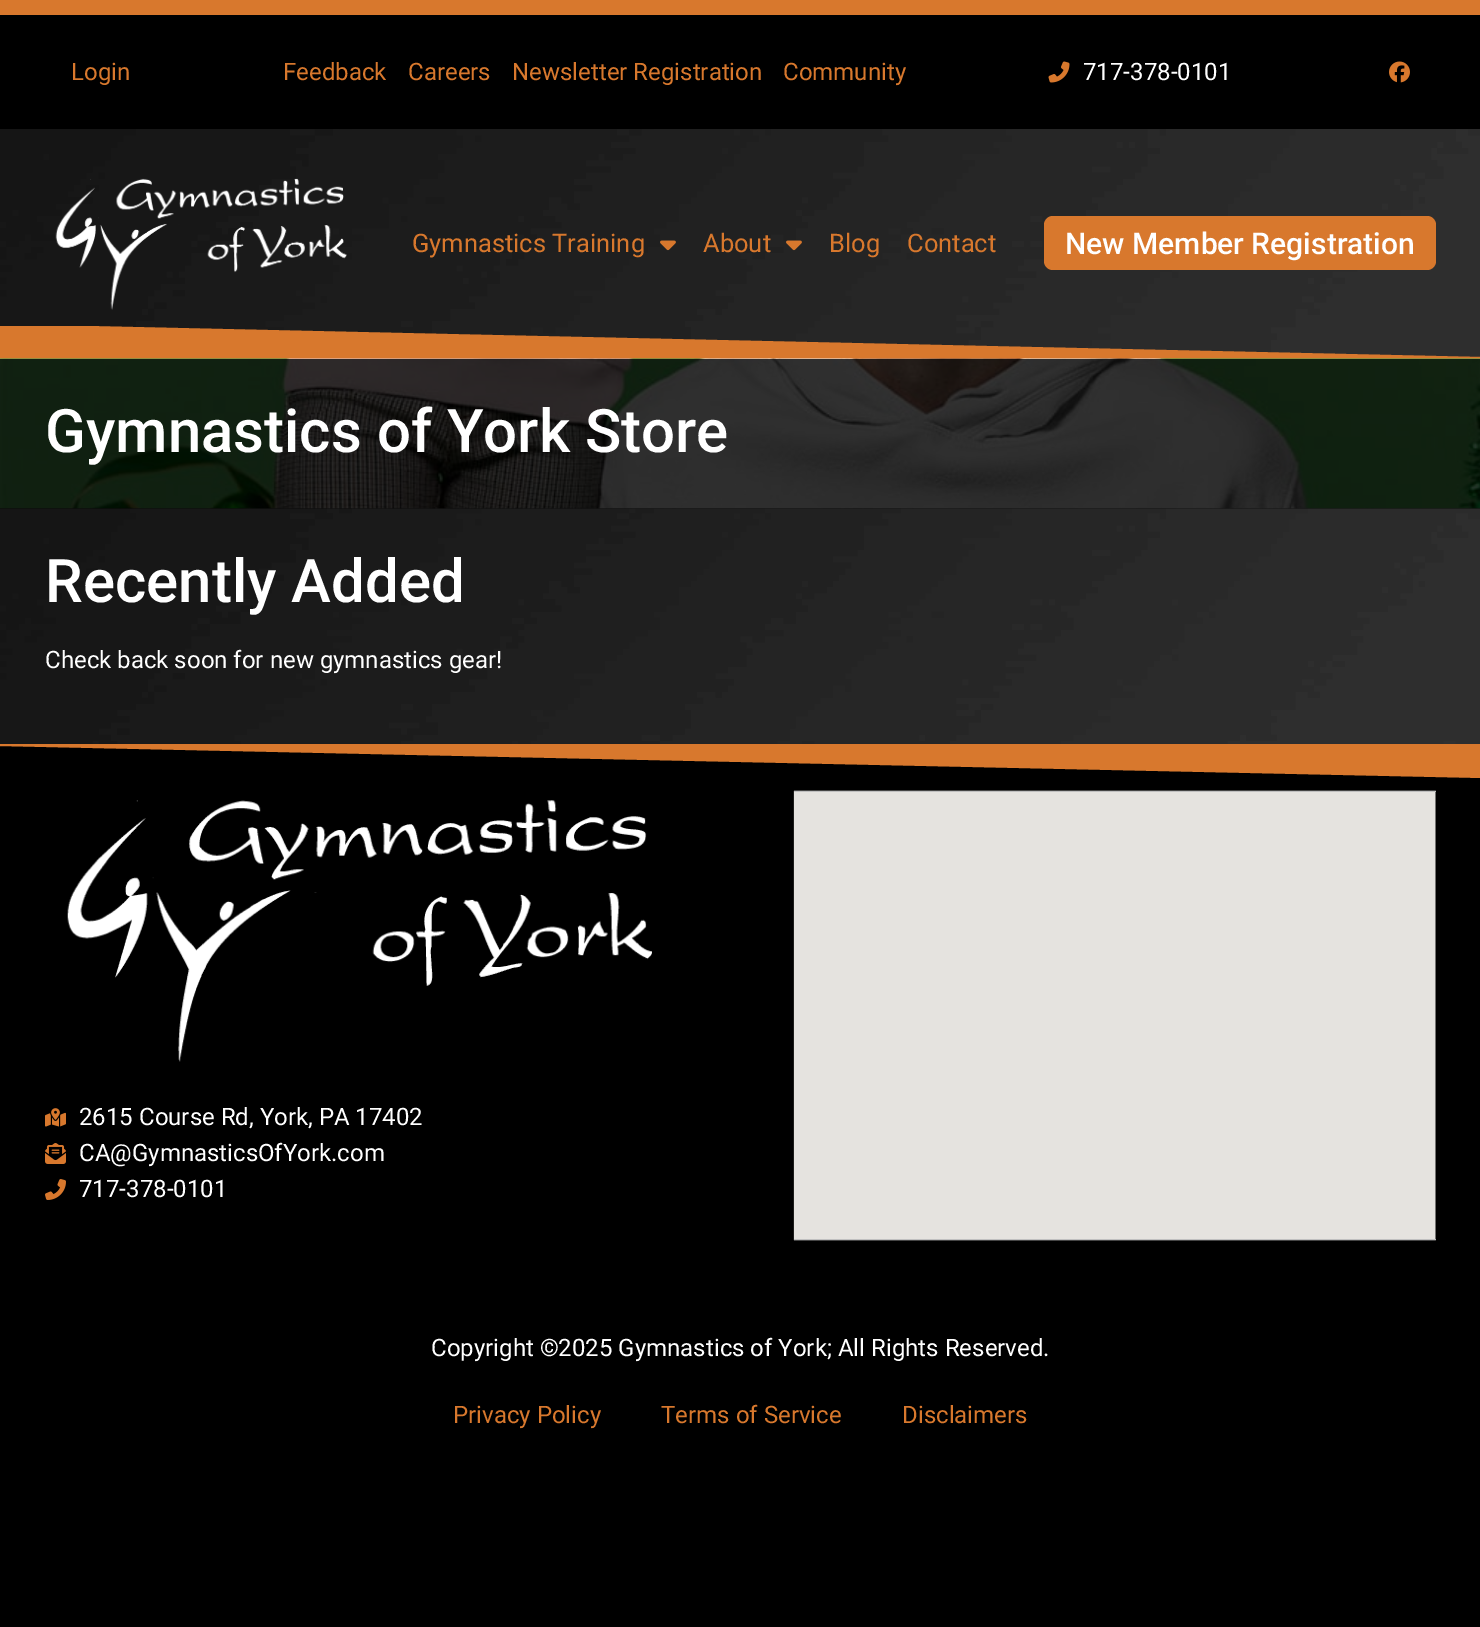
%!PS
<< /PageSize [1480 1627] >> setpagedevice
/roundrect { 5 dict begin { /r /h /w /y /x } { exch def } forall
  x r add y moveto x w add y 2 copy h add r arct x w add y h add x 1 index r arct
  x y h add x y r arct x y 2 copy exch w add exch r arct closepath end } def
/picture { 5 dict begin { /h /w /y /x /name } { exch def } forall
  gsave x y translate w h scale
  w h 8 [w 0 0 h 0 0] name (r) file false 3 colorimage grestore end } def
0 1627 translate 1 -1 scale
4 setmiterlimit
0 setgray
0 0 1480 1627 rectfill
0.847 0.471 0.176 setrgbcolor
0 0 1480 15 rectfill
/Roboto-Regular [24 0 0 -24 0 0] selectfont
71 80 moveto (Login) show
283 80 moveto (Feedback) show
408 80 moveto (Careers) show
512 80 moveto (Newsletter Registration) show
783 80 moveto (Community) show
(img1.rgb) 1048 61 22 22 picture
1 setgray
1083 80 moveto (717-378-0101) show
(img2.rgb) 1389 61 21 22 picture
(img3.rgb) 0 129 1480 228 picture
(img4.rgb) 55 178 292 132 picture
/Roboto-Regular [25.5 0 0 -25.5 0 0] selectfont
0.847 0.471 0.176 setrgbcolor
412 252 moveto (Gymnastics Training) show
(img5.rgb) 660 240 16 11 picture
703 252 moveto (About) show
(img6.rgb) 786 240 16 11 picture
829 252 moveto (Blog) show
907 252 moveto (Contact) show
1044 216 392 54 9 roundrect fill
/Roboto-Medium [30 0 0 -30 0 0] selectfont
1 setgray
1065 254 moveto (New Member Registration) show
gsave
0 326 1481 34 rectclip
0.847 0.471 0.176 setrgbcolor
newpath 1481 357 moveto 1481 359 lineto -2 359 lineto -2 324 lineto closepath fill
grestore
(img7.rgb) 0 358 1480 151 picture
/Roboto-Medium [60 0 0 -60 0 0] selectfont
45 452 moveto (Gymnastics of York Store) show
(img8.rgb) 0 508 1480 236 picture
45 602 moveto (Recently Added) show
/Roboto-Regular [24 0 0 -24 0 0] selectfont
45 668 moveto (Check back soon for new gymnastics gear!) show
0.847 0.471 0.176 setrgbcolor
newpath 0 746 moveto 0 744 lineto 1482 744 lineto 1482 778 lineto closepath fill
(img9.rgb) 67 800 585 262 picture
(img10.rgb) 45 1108 21 19 picture
1 setgray
79 1125 moveto (2615 Course Rd, York, PA 17402) show
(img11.rgb) 45 1143 21 21 picture
79 1161 moveto (CA@GymnasticsOfYork.com) show
(img12.rgb) 45 1179 21 21 picture
79 1197 moveto (717-378-0101) show
(img13.rgb) 793 790 643 451 picture
431 1356 moveto (Copyright ©2025 Gymnastics of York; All Rights Reserved.) show
0.847 0.471 0.176 setrgbcolor
453 1423 moveto (Privacy Policy) show
661 1423 moveto (Terms of Service) show
902 1423 moveto (Disclaimers) show
showpage
